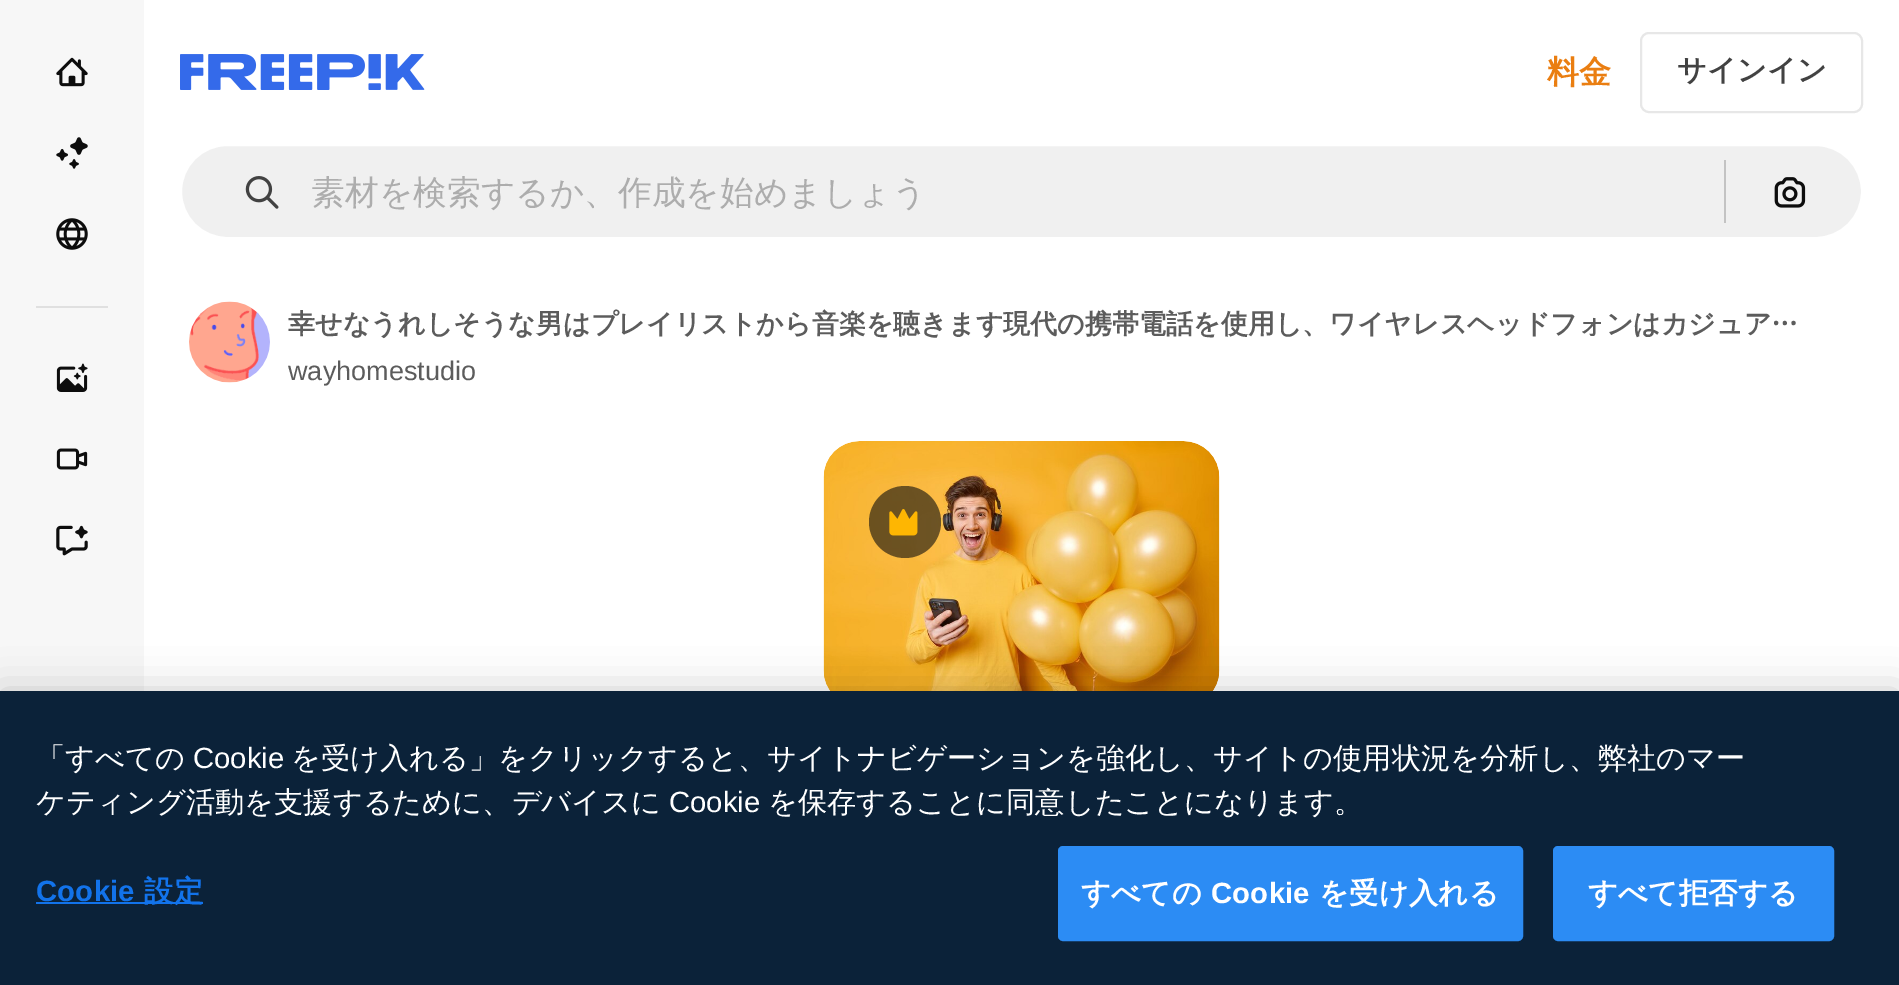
%!PS
<< /PageSize [1899 985] /PageUsesTransparency true >> setpagedevice
/alpha { dup .setfillconstantalpha .setstrokeconstantalpha } def
/roundrect { 5 dict begin { /r /h /w /y /x } { exch def } forall
  x r add y moveto x w add y 2 copy h add r arct x w add y h add x 1 index r arct
  x y h add x y r arct x y 2 copy exch w add exch r arct closepath end } def
/shadow { 12 dict begin { /a /b /q /h /w /y /x } { exch def } forall gsave /was 0 def
  9 -2 -9 { dup b mul 4 div /e exch def 1 sub .425 mul 2.718 exch exp 1 add a .99 .min exch div /now exch def
    1 1 now sub 1 was sub div sub alpha /was now def
    w h .min e 2 mul add 0 gt { x e sub y e sub w e 2 mul add h e 2 mul add
      q e add b .6 mul add w h .min 2 div e add .min 0 .max roundrect fill } if } for grestore end } def
/picture { 5 dict begin { /h /w /y /x /name } { exch def } forall
  gsave x y translate w h scale
  w h 8 [w 0 0 h 0 0] name (r) file false 3 colorimage grestore end } def
0 .pushpdf14devicefilter
0 985 translate 1 -1 scale
4 setmiterlimit
1 setgray
0 0 1899 985 rectfill
0.969 setgray
0 0 144 691 rectfill
(img1.rgb) 56 57 32 30 picture
(img2.rgb) 56 137 32 32 picture
(img3.rgb) 56 218 32 32 picture
0.878 setgray
36 306 72 2 rectfill
(img4.rgb) 56 363 32 29 picture
(img5.rgb) 56 448 32 22 picture
(img6.rgb) 56 525 32 31 picture
(img7.rgb) 180 54 245 36 picture
/WenQuanYiZenHei-Bold [32 0 0 -32 0 0] selectfont
0.918 0.494 0.067 setrgbcolor
1547 83 moveto (料金) show
0.906 setgray
2 setlinewidth
1641 33 221 79 8 roundrect stroke
/WenQuanYiZenHei-Bold [29.25 0 0 -29.25 0 0] selectfont
0.259 setgray
1677 80 moveto (サインイン) show
0.941 setgray
181 145 1681 93 46.5 roundrect gsave fill grestore
1 setgray
stroke
(img8.rgb) 245 176 34 33 picture
/WenQuanYiZenHei-Medium [33.75 0 0 -33.75 0 0] selectfont
0.678 setgray
311 204 moveto (素材を検索するか、作成を始めましょう) show
0.765 setgray
1724 160 2 63 rectfill
(img9.rgb) 1774 177 32 31 picture
(img10.rgb) 189 301 81 82 picture
/WenQuanYiZenHei-Bold [27 0 0 -27 0 0] selectfont
0.361 setgray
288 333 moveto (幸せなうれしそうな男はプレイリストから音楽を聴きます現代の携帯電話を使用し、ワイヤレスヘッドフォンはカジュア…) show
/LiberationSans-Regular [27 0 0 -27 0 0] selectfont
288 380 moveto (wayhomestudio) show
(img11.rgb) 823 441 397 250 picture
0.6 alpha
0.051 setgray
newpath 905 522 36 0 360 arc closepath fill
1 alpha
(img12.rgb) 889 509 29 27 picture
0 setgray
0 691 1899 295 0 20 0.2 shadow
0.043 0.133 0.224 setrgbcolor
0 691 1899 294 rectfill
/WenQuanYiZenHei-Medium [29.25 0 0 -29.25 0 0] selectfont
1 setgray
36 768 moveto (「すべての) show
/LiberationSans-Regular [29.25 0 0 -29.25 0 0] selectfont
193 768 moveto (Cookie) show
/WenQuanYiZenHei-Medium [29.25 0 0 -29.25 0 0] selectfont
291 768 moveto (を受け入れる」をクリックすると、サイトナビゲーションを強化し、サイトの使用状況を分析し、弊社のマー) show
36 812 moveto (ケティング活動を支援するために、デバイスに) show
/LiberationSans-Regular [29.25 0 0 -29.25 0 0] selectfont
669 812 moveto (Cookie) show
/WenQuanYiZenHei-Medium [29.25 0 0 -29.25 0 0] selectfont
768 812 moveto (を保存することに同意したことになります。) show
/LiberationSans-Bold [29.25 0 0 -29.25 0 0] selectfont
0.071 0.451 0.922 setrgbcolor
36 901 moveto 0.25 0 (Cookie) ashow
36 902 167 2 rectfill
/WenQuanYiZenHei-Bold [29.25 0 0 -29.25 0 0] selectfont
144 901 moveto 0.25 0 (設定) ashow
0.173 0.549 0.957 setrgbcolor
1059 847 463 93 4 roundrect gsave fill grestore
stroke
1 setgray
1081 903 moveto 0.25 0 (すべての) ashow
/LiberationSans-Bold [29.25 0 0 -29.25 0 0] selectfont
1211 903 moveto 0.25 0 (Cookie) ashow
/WenQuanYiZenHei-Bold [29.25 0 0 -29.25 0 0] selectfont
1319 903 moveto 0.25 0 (を受け入れる) ashow
0.173 0.549 0.957 setrgbcolor
1554 847 279 93 4 roundrect gsave fill grestore
stroke
1 setgray
1588 903 moveto 0.25 0 (すべて拒否する) ashow
.poppdf14devicefilter showpage
